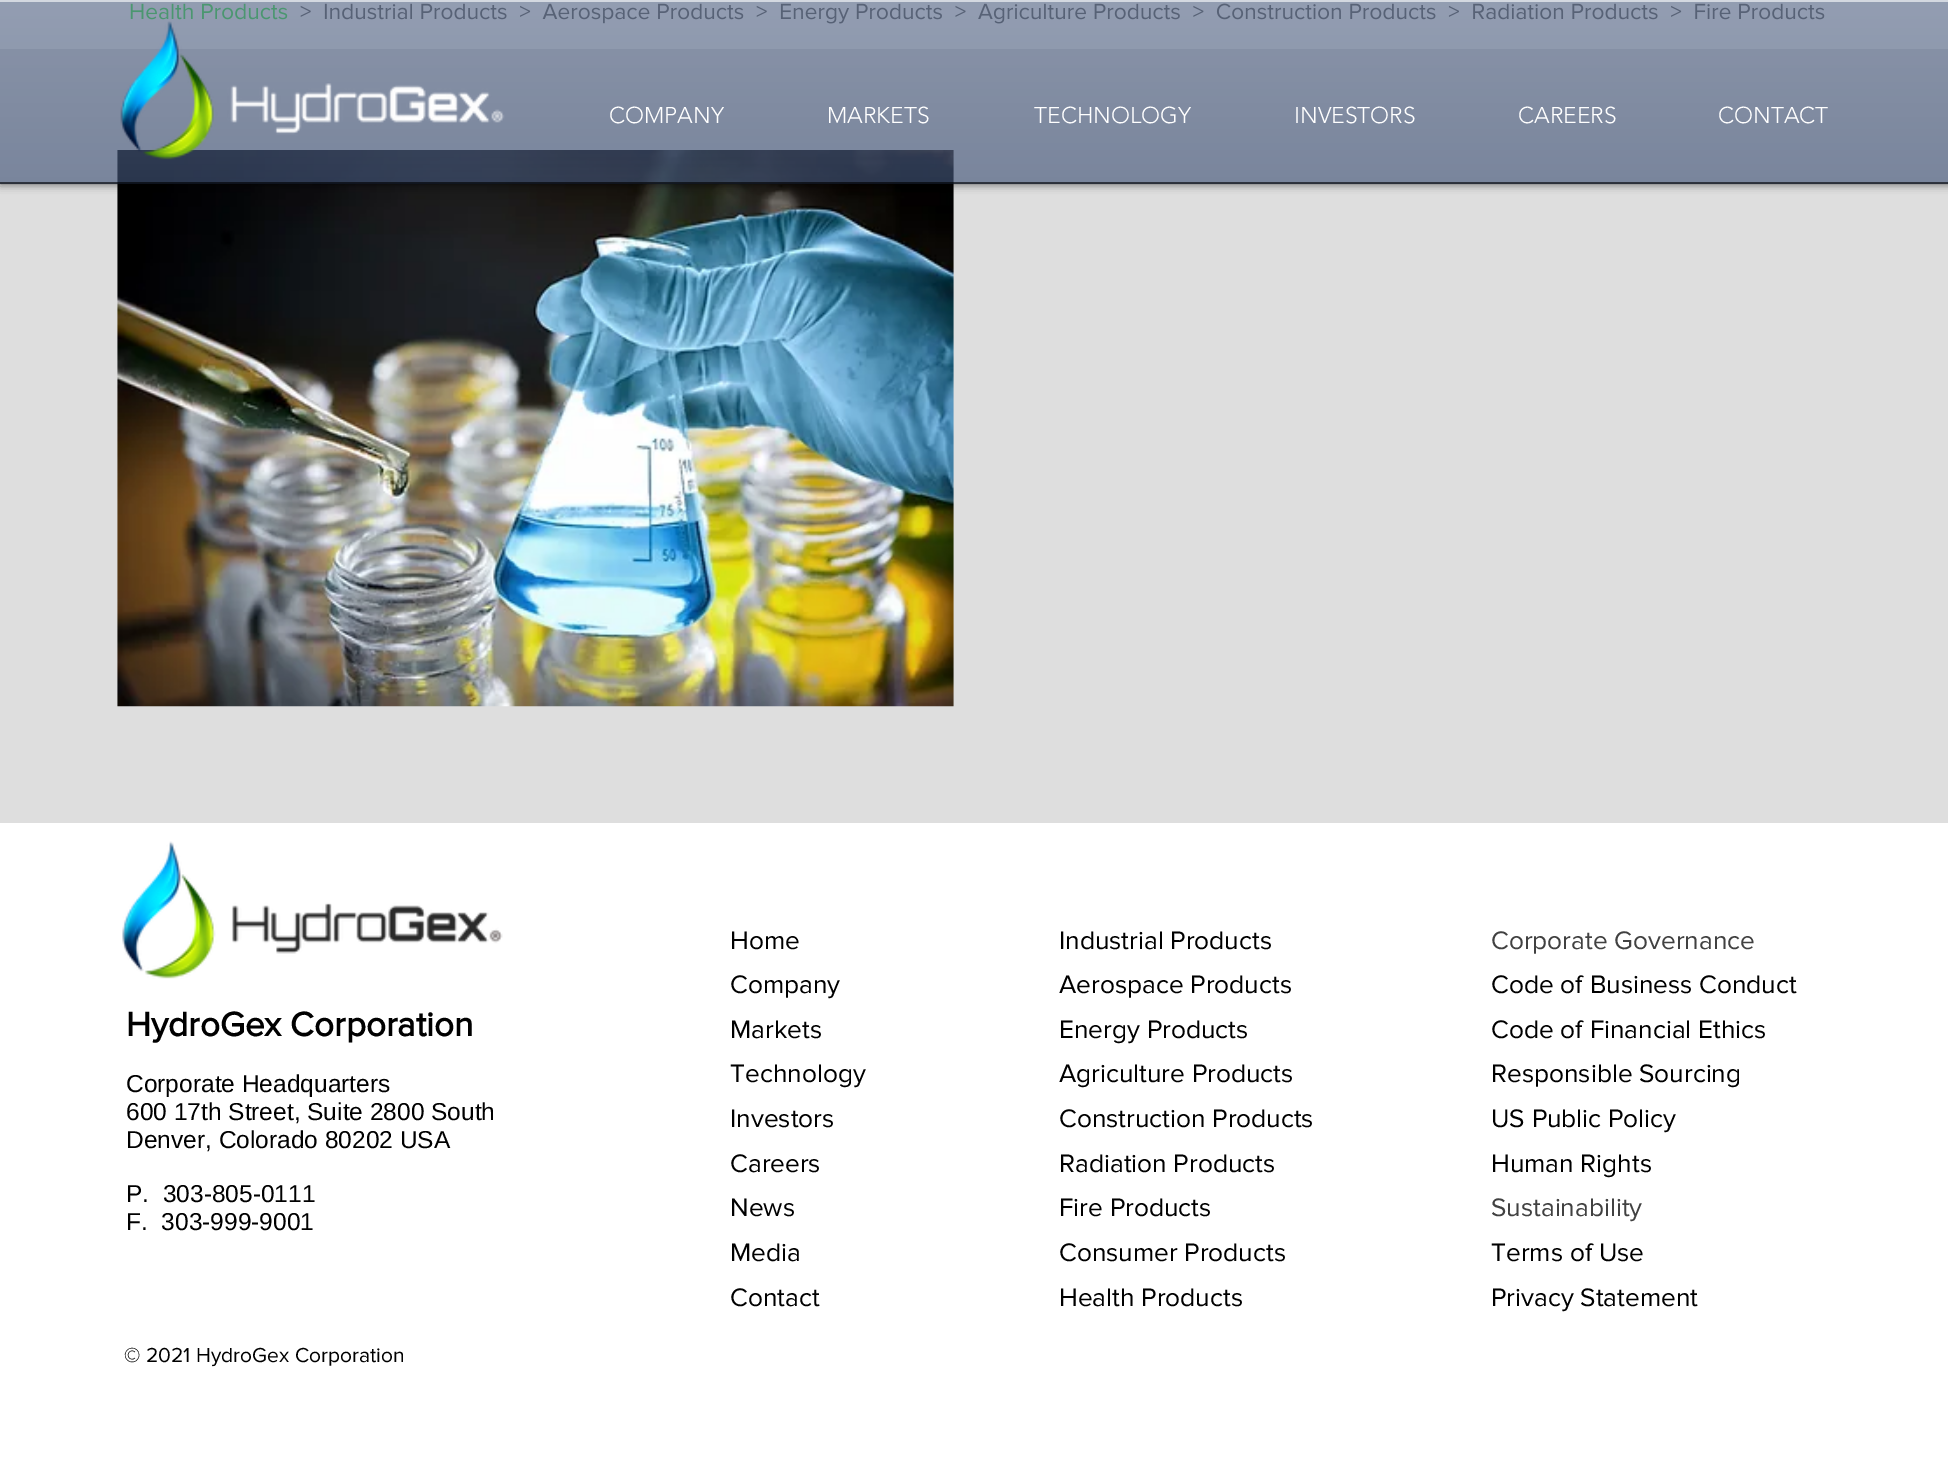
%!PS
<< /PageSize [1948 1472] /PageUsesTransparency true >> setpagedevice
/alpha { dup .setfillconstantalpha .setstrokeconstantalpha } def
/roundrect { 5 dict begin { /r /h /w /y /x } { exch def } forall
  x r add y moveto x w add y 2 copy h add r arct x w add y h add x 1 index r arct
  x y h add x y r arct x y 2 copy exch w add exch r arct closepath end } def
/shadow { 12 dict begin { /a /b /q /h /w /y /x } { exch def } forall gsave /was 0 def
  9 -2 -9 { dup b mul 4 div /e exch def 1 sub .425 mul 2.718 exch exp 1 add a .99 .min exch div /now exch def
    1 1 now sub 1 was sub div sub alpha /was now def
    w h .min e 2 mul add 0 gt { x e sub y e sub w e 2 mul add h e 2 mul add
      q e add b .6 mul add w h .min 2 div e add .min 0 .max roundrect fill } if } for grestore end } def
/picture { 5 dict begin { /h /w /y /x /name } { exch def } forall
  gsave x y translate w h scale
  w h 8 [w 0 0 h 0 0] name (r) file false 3 colorimage grestore end } def
0 .pushpdf14devicefilter
0 1472 translate 1 -1 scale
4 setmiterlimit
1 setgray
0 0 1948 1472 rectfill
0.98 setgray
0 2 1948 47 rectfill
/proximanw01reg-Regular [22.75 0 0 -22.75 0 0] selectfont
0.102 0.91 0.18 setrgbcolor
129 19 moveto (Health Products) show
0.255 setgray
300 19 moveto (>) show
323 19 moveto (Industrial Products) show
519 19 moveto (>) show
542 19 moveto (Aerospace Products) show
756 19 moveto (>) show
779 19 moveto (Energy Products) show
955 19 moveto (>) show
978 19 moveto (Agriculture Products) show
1193 19 moveto (>) show
1216 19 moveto (Construction Products) show
1448 19 moveto (>) show
1471 19 moveto (Radiation Products) show
1670 19 moveto (>) show
1693 19 moveto (Fire Products) show
0.871 setgray
0 49 1948 774 rectfill
(img1.rgb) 117 150 837 557 picture
gsave
newpath 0 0 moveto 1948 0 lineto 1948 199 lineto 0 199 lineto closepath 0 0 moveto 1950 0 lineto 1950 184 lineto 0 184 lineto closepath eoclip newpath
0 setgray
0 0 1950 184 0 4.5 0.6 shadow
grestore
0.58 alpha
0.027 0.122 0.306 setrgbcolor
0 2 1948 182 rectfill
1 alpha
(img2.rgb) 0 2 1948 182 picture
0.6 alpha
0 setgray
0 182 1948 2 rectfill
1 alpha
0.827 0.847 0.878 setrgbcolor
0 0 1948 2 rectfill
(img3.rgb) 120 21 385 139 picture
/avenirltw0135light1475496-Light [22.75 0 0 -22.75 0 0] selectfont
1 setgray
609 123 moveto (COMPANY) show
827 123 moveto (MARKETS) show
1034 123 moveto (TECHNOLOGY) show
1294 123 moveto (INVESTORS) show
1518 123 moveto (CAREERS) show
1718 123 moveto (CONTACT) show
(img4.rgb) 122 841 381 138 picture
/proximanw01reg-Bold [35 0 0 -35 0 0] selectfont
0 setgray
126 1036 moveto (HydroGex Corporation) show
/LiberationSans-Regular [24.5 0 0 -24.5 0 0] selectfont
126 1092 moveto (Corporate Headquarters) show
126 1120 moveto (600 17th Street, Suite 2800 South) show
126 1148 moveto (Denver, Colorado 80202 USA) show
126 1202 moveto (P.  303-805-0111) show
126 1230 moveto (F.  303-999-9001) show
/proximanw01reg-Regular [26.25 0 0 -26.25 0 0] selectfont
730 949 moveto (Home) show
730 993 moveto (Company) show
730 1038 moveto (Markets) show
730 1082 moveto (Technology) show
730 1127 moveto (Investors) show
730 1172 moveto (Careers) show
730 1216 moveto (News) show
730 1261 moveto (Media) show
730 1306 moveto (Contact) show
1059 949 moveto (Industrial Products) show
1059 993 moveto (Aerospace Products) show
1059 1038 moveto (Energy Products) show
1059 1082 moveto (Agriculture Products) show
1059 1127 moveto (Construction Products) show
1059 1172 moveto (Radiation Products) show
1059 1216 moveto (Fire Products) show
1059 1261 moveto (Consumer Products) show
1059 1306 moveto (Health Products) show
0.255 setgray
1491 949 moveto (Corporate Governance) show
0 setgray
1491 993 moveto (Code of Business Conduct) show
1491 1038 moveto (Code of Financial Ethics) show
1491 1082 moveto (Responsible Sourcing) show
1491 1127 moveto (US Public Policy) show
1491 1172 moveto (Human Rights) show
0.255 setgray
1491 1216 moveto (Sustainability) show
0 setgray
1491 1261 moveto (Terms of Use) show
1491 1306 moveto (Privacy Statement) show
/proximanw01reg-Regular [21 0 0 -21 0 0] selectfont
124 1362 moveto (© 2021 HydroGex Corporation) show
.poppdf14devicefilter showpage
